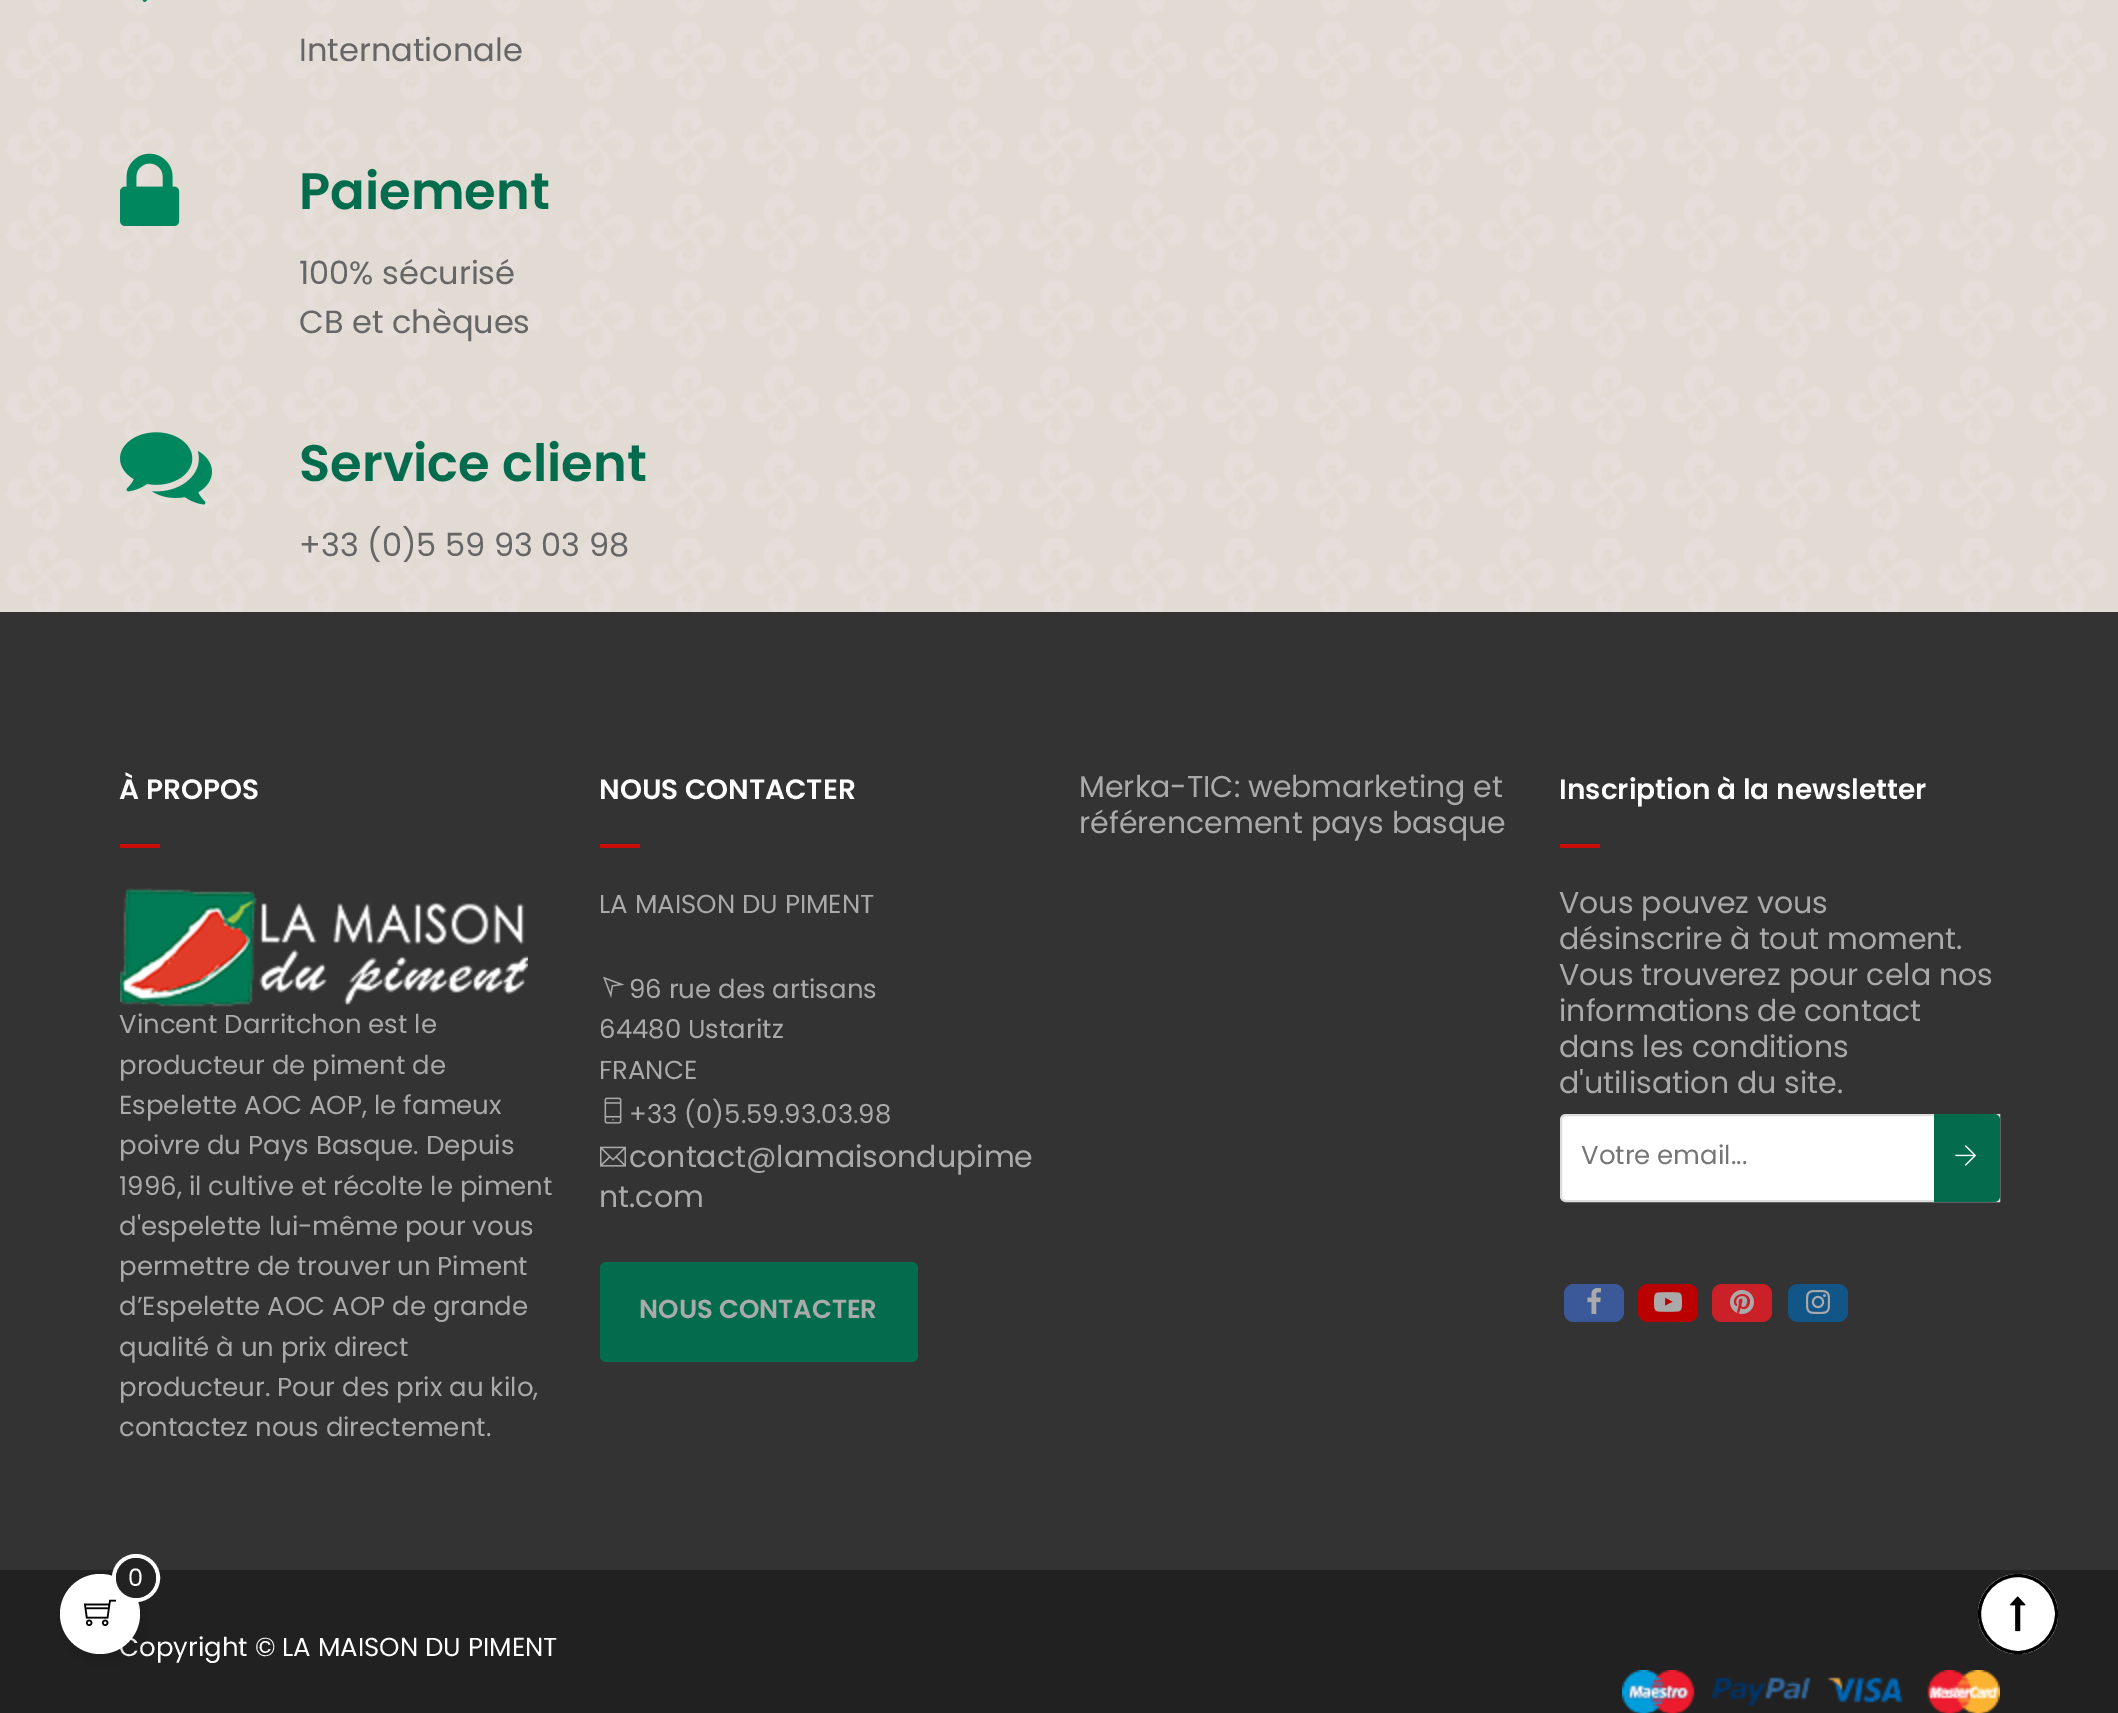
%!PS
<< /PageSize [2118 1713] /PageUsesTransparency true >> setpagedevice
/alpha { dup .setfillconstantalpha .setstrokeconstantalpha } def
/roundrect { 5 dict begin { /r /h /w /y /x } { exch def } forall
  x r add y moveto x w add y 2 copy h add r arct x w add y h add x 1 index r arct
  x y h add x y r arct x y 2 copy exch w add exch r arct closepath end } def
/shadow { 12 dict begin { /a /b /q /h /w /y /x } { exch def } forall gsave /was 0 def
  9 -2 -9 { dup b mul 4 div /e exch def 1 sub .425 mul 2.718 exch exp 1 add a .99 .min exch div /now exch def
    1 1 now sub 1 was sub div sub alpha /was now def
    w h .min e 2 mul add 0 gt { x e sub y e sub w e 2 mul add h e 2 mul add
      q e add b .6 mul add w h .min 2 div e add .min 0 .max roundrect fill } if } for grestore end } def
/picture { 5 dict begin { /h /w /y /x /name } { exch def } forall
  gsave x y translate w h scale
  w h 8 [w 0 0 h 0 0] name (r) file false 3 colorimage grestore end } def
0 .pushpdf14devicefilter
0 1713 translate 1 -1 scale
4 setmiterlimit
1 setgray
0 0 2118 1713 rectfill
(img1.rgb) 0 0 2118 612 picture
(img2.rgb) 0 0 2118 612 picture
(img3.rgb) 142 0 6 2 picture
/Poppins-Regular [32 0 0 -32 0 0] selectfont
0.4 setgray
299 61 moveto (Internationale) show
(img4.rgb) 120 153 60 73 picture
/Poppins-SemiBold [51.25 0 0 -51.25 0 0] selectfont
0.012 0.424 0.298 setrgbcolor
299 209 moveto (Paiement) show
/Poppins-Regular [32 0 0 -32 0 0] selectfont
0.4 setgray
299 284 moveto (100% sécurisé) show
299 333 moveto (CB et chèques) show
(img5.rgb) 120 432 92 73 picture
/Poppins-SemiBold [51.25 0 0 -51.25 0 0] selectfont
0.012 0.424 0.298 setrgbcolor
299 481 moveto (Service client) show
/Poppins-Regular [32 0 0 -32 0 0] selectfont
0.4 setgray
299 556 moveto (+33 \(0\)5 59 93 03 98) show
0.2 setgray
0 612 2118 958 rectfill
/Poppins-SemiBold [28 0 0 -28 0 0] selectfont
1 setgray
119 799 moveto (À PROPOS) show
0.8 0.047 0.027 setrgbcolor
120 844 40 4 rectfill
(img6.rgb) 120 888 408 120 picture
/Poppins-Regular [26 0 0 -26 0 0] selectfont
0.667 setgray
119 1033 moveto (Vincent Darritchon est le) show
119 1074 moveto (producteur de piment de) show
119 1114 moveto (Espelette AOC AOP, le fameux) show
119 1154 moveto (poivre du Pays Basque. Depuis) show
119 1195 moveto (1996, il cultive et récolte le piment) show
119 1235 moveto (d'espelette lui-même pour vous) show
119 1275 moveto (permettre de trouver un Piment) show
119 1315 moveto (d’Espelette AOC AOP de grande) show
119 1356 moveto (qualité à un prix direct) show
119 1396 moveto (producteur. Pour des prix au kilo,) show
119 1436 moveto (contactez nous directement.) show
/Poppins-SemiBold [28 0 0 -28 0 0] selectfont
1 setgray
599 799 moveto (NOUS CONTACTER) show
0.8 0.047 0.027 setrgbcolor
600 844 40 4 rectfill
/Poppins-Regular [26 0 0 -26 0 0] selectfont
0.667 setgray
599 913 moveto (LA MAISON DU PIMENT) show
(img7.rgb) 603 976 22 22 picture
629 998 moveto (96 rue des artisans) show
599 1038 moveto (64480 Ustaritz) show
599 1079 moveto (FRANCE) show
(img8.rgb) 604 1097 18 27 picture
629 1123 moveto (+33 \(0\)5.59.93.03.98) show
(img9.rgb) 600 1146 26 21 picture
/Poppins-Regular [30 0 0 -30 0 0] selectfont
629 1167 moveto (contact@lamaisondupime) show
599 1207 moveto (nt.com) show
0.012 0.424 0.298 setrgbcolor
600 1262 318 100 6 roundrect fill
/Poppins-SemiBold [26 0 0 -26 0 0] selectfont
0.667 setgray
639 1318 moveto (NOUS CONTACTER) show
/Poppins-Regular [30 0 0 -30 0 0] selectfont
1079 797 moveto (Merka-TIC: webmarketing et) show
1079 833 moveto (référencement pays basque) show
/Poppins-SemiBold [28 0 0 -28 0 0] selectfont
1 setgray
1559 799 moveto (Inscription à la newsletter) show
0.8 0.047 0.027 setrgbcolor
1560 844 40 4 rectfill
/Poppins-Regular [30 0 0 -30 0 0] selectfont
0.667 setgray
1559 913 moveto (Vous pouvez vous) show
1559 949 moveto (désinscrire à tout moment.) show
1559 985 moveto (Vous trouverez pour cela nos) show
1559 1021 moveto (informations de contact) show
1559 1057 moveto (dans les conditions) show
1559 1093 moveto (d'utilisation du site.) show
1 setgray
newpath 1566 1115 moveto 1999 1115 lineto 1999 1201 lineto 1566 1201 lineto 1563 1201 1561 1199 1561 1196 curveto 1561 1120 lineto 1561 1117 1563 1115 1566 1115 curveto closepath gsave fill grestore
0.867 setgray
2 setlinewidth
stroke
/Poppins-Regular [26 0 0 -26 0 0] selectfont
0.459 setgray
1581 1164 moveto (Votre email...) show
0.012 0.424 0.298 setrgbcolor
newpath 1934 1114 moveto 1994 1114 lineto 1997.5 1114 2000 1116.5 2000 1120 curveto 2000 1196 lineto 2000 1199.5 1997.5 1202 1994 1202 curveto 1934 1202 lineto closepath fill
(img10.rgb) 1955 1145 22 21 picture
0.231 0.349 0.596 setrgbcolor
1564 1284 60 38 10 roundrect fill
(img11.rgb) 1587 1288 14 26 picture
0.733 0 0 setrgbcolor
1638 1284 60 38 10 roundrect fill
(img12.rgb) 1654 1292 28 20 picture
0.796 0.125 0.153 setrgbcolor
1712 1284 60 38 10 roundrect fill
(img13.rgb) 1730 1290 24 24 picture
0.071 0.337 0.533 setrgbcolor
1788 1284 60 38 10 roundrect fill
(img14.rgb) 1806 1290 24 24 picture
0.129 setgray
0 1570 2118 143 rectfill
1 setgray
119 1656 moveto (Copyright © LA MAISON DU PIMENT) show
(img15.rgb) 1622 1670 378 43 picture
newpath 2018 1614 40 0 360 arc closepath fill
0 setgray
3.1 setlinewidth
newpath 2018 1575.5 moveto 2039 1575.5 2056.5 1593 2056.5 1614 curveto 2056.5 1635 2039 1652.5 2018 1652.5 curveto 1997 1652.5 1979.5 1635 1979.5 1614 curveto 1979.5 1593 1997 1575.5 2018 1575.5 curveto stroke
(img16.rgb) 2010 1596 16 36 picture
64 1580 80 80 40 10 0.15 shadow
1 setgray
newpath 100 1614 40 0 360 arc closepath fill
(img17.rgb) 83 1599 33 28 picture
4 setlinewidth
newpath 136 1578 22 0 360 arc closepath stroke
0.133 setgray
newpath 136 1578 20 0 360 arc closepath fill
/Poppins-Regular [24 0 0 -24 0 0] selectfont
1 setgray
128 1586 moveto (0) show
.poppdf14devicefilter showpage
